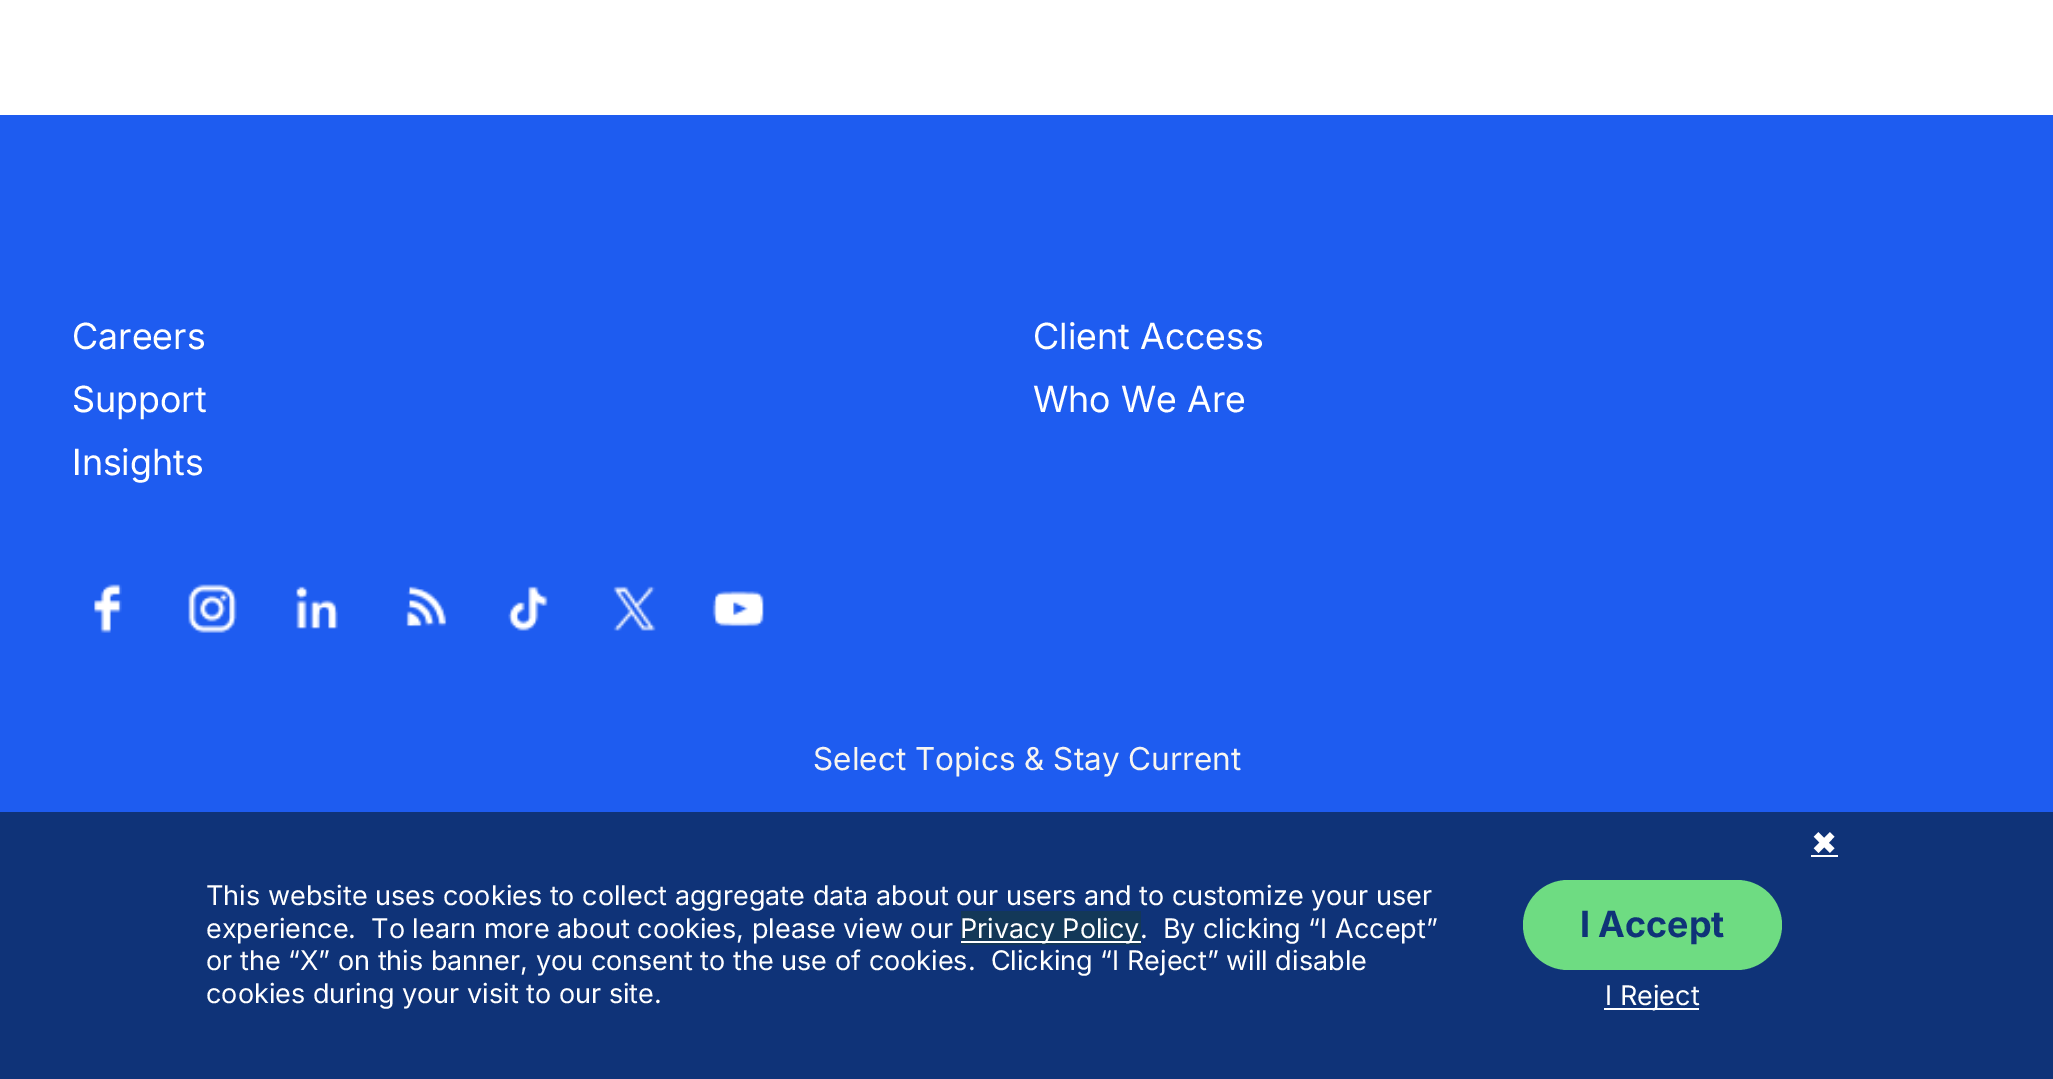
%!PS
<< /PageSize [2053 1079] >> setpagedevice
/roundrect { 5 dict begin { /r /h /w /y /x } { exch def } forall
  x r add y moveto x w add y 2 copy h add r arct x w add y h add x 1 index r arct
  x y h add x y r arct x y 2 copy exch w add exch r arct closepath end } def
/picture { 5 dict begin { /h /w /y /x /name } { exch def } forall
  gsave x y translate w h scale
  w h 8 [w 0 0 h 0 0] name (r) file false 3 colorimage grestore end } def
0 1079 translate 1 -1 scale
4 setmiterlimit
1 setgray
0 0 2053 1079 rectfill
0.118 0.361 0.941 setrgbcolor
0 115 2053 697 rectfill
/Inter-Regular [36 0 0 -36 0 0] selectfont
1 setgray
72 349 moveto (Careers) show
1033 349 moveto (Client Access) show
72 412 moveto (Support) show
1033 412 moveto (Who We Are) show
72 475 moveto (Insights) show
(img1.rgb) 94 584 28 49 picture
(img2.rgb) 188 584 49 49 picture
(img3.rgb) 296 586 42 43 picture
(img4.rgb) 406 586 41 41 picture
(img5.rgb) 508 586 40 45 picture
(img6.rgb) 613 586 43 45 picture
(img7.rgb) 712 591 52 36 picture
/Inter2-Regular [31.5 0 0 -31.5 0 0] selectfont
0.969 0.961 0.945 setrgbcolor
813 770 moveto (Select Topics & Stay Current) show
0.059 0.2 0.471 setrgbcolor
0 812 2053 267 rectfill
/DejaVuSans-Regular [31.5 0 0 -31.5 0 0] selectfont
1 setgray
1811 854 moveto (✖) show
1811 855 27 2 rectfill
/Inter2-Regular [27 0 0 -27 0 0] selectfont
206 905 moveto (This website uses cookies to collect aggregate data about our users and to customize your user) show
206 938 moveto (experience.  To learn more about cookies, please view our) show
0.075 0.22 0.345 setrgbcolor
961 911 180 34 rectfill
1 setgray
961 941 180 2 rectfill
960 938 moveto (Privacy Policy.  By clicking “I Accept”) show
206 970 moveto (or the “X” on this banner, you consent to the use of cookies.  Clicking “I Reject” will disable) show
206 1003 moveto (cookies during your visit to our site.) show
0.431 0.863 0.51 setrgbcolor
1523 880 259 90 45 roundrect fill
/Inter-Bold [36 0 0 -36 0 0] selectfont
0.059 0.2 0.471 setrgbcolor
1580 937 moveto (I Accept) show
1 setgray
1604 1008 95 2 rectfill
/Inter2-Regular [27 0 0 -27 0 0] selectfont
1605 1005 moveto (I Reject) show
showpage
